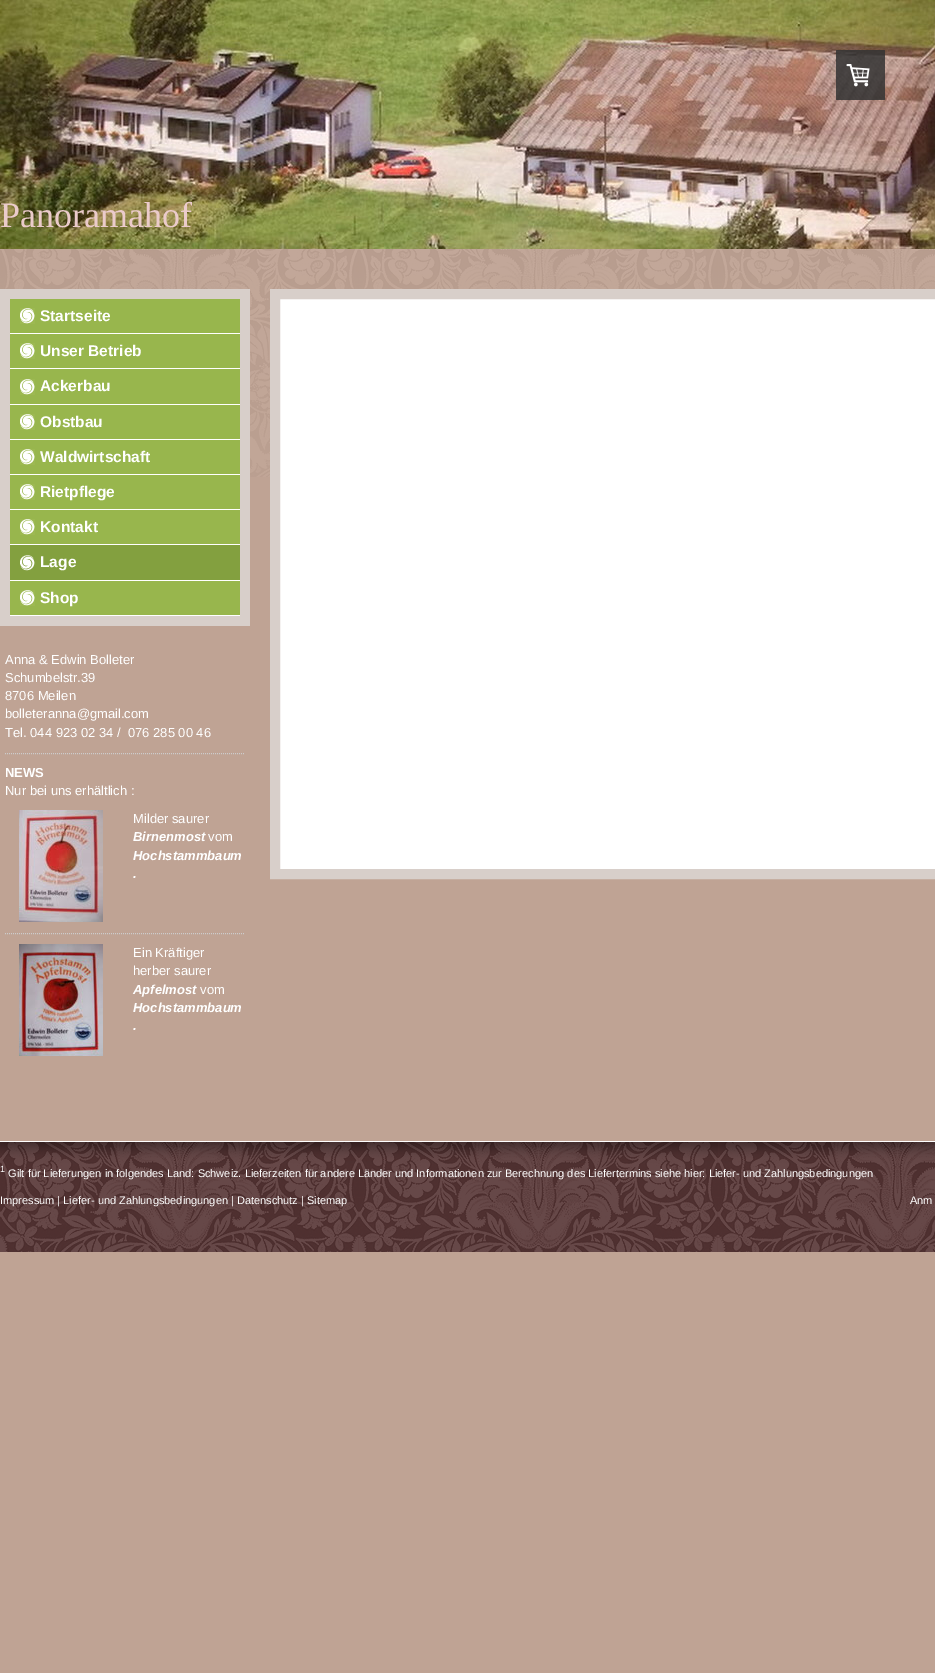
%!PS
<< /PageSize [935 1673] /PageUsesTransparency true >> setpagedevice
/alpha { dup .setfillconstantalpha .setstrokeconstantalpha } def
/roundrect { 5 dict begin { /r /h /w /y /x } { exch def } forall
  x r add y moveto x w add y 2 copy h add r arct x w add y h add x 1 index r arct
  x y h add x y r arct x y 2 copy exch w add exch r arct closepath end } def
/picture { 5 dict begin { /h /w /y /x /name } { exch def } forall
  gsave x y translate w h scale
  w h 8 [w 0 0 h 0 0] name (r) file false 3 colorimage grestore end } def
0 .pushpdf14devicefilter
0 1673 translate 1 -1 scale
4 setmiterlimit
0.749 0.639 0.58 setrgbcolor
0 0 935 1673 rectfill
(img1.rgb) 0 249 935 228 picture
(img2.rgb) 0 0 935 249 picture
/LiberationSerif-Regular [36 0 0 -36 0 0] selectfont
0.922 0.796 0.796 setrgbcolor
0 227 moveto (Panoramahof) show
0.847 0.812 0.792 setrgbcolor
0 289 250 337 rectfill
0.596 0.714 0.302 setrgbcolor
10 299 230 34 rectfill
(img3.rgb) 20 308 15 16 picture
1 setgray
10 333 230 1 rectfill
/LiberationSans-Bold [15.5 0 0 -15.5 0 0] selectfont
40 321 moveto (Startseite) show
0.596 0.714 0.302 setrgbcolor
10 334 230 34 rectfill
(img3.rgb) 20 343 15 16 picture
1 setgray
10 368 230 1 rectfill
40 356 moveto (Unser Betrieb) show
0.596 0.714 0.302 setrgbcolor
10 369 230 35 rectfill
(img3.rgb) 20 379 15 16 picture
1 setgray
10 404 230 1 rectfill
40 391 moveto (Ackerbau) show
0.596 0.714 0.302 setrgbcolor
10 405 230 34 rectfill
(img3.rgb) 20 414 15 16 picture
1 setgray
10 439 230 1 rectfill
40 427 moveto (Obstbau) show
0.596 0.714 0.302 setrgbcolor
10 440 230 34 rectfill
(img3.rgb) 20 449 15 16 picture
1 setgray
10 474 230 1 rectfill
40 462 moveto (Waldwirtschaft) show
0.596 0.714 0.302 setrgbcolor
10 475 230 34 rectfill
(img3.rgb) 20 484 15 16 picture
1 setgray
10 509 230 1 rectfill
40 497 moveto (Rietpflege) show
0.596 0.714 0.302 setrgbcolor
10 510 230 34 rectfill
(img3.rgb) 20 519 15 16 picture
1 setgray
10 544 230 1 rectfill
40 532 moveto (Kontakt) show
0.514 0.627 0.247 setrgbcolor
10 545 230 35 rectfill
(img4.rgb) 20 555 15 16 picture
1 setgray
10 580 230 1 rectfill
40 567 moveto (Lage) show
0.596 0.714 0.302 setrgbcolor
10 581 230 34 rectfill
(img3.rgb) 20 590 15 16 picture
1 setgray
10 615 230 1 rectfill
40 603 moveto (Shop) show
0.85 alpha
0.2 setgray
836 50 49 50 1 roundrect fill
1 alpha
(img5.rgb) 846 64 24 23 picture
/LiberationSans-Regular [13 0 0 -13 0 0] selectfont
1 setgray
5 664 moveto (Anna & Edwin Bolleter) show
5 682 moveto (Schumbelstr.39) show
5 700 moveto (8706 Meilen) show
5 718 moveto (bolleteranna@gmail.com) show
5 737 moveto (Tel. 044 923 02 34 /  076 285 00 46) show
0.8 setgray
[1 1] 0 setdash
newpath 5 753.5 moveto 245 753.5 lineto stroke
/LiberationSans-Bold [13 0 0 -13 0 0] selectfont
1 setgray
5 777 moveto (NEWS) show
/LiberationSans-Regular [13 0 0 -13 0 0] selectfont
5 795 moveto (Nur bei uns erhältlich :) show
(img6.rgb) 19 810 84 112 picture
133 823 moveto (Milder saurer) show
/LiberationSans-BoldItalic [13 0 0 -13 0 0] selectfont
133 841 moveto (Birnenmost) show
/LiberationSans-Regular [13 0 0 -13 0 0] selectfont
208 841 moveto (vom) show
/LiberationSans-BoldItalic [13 0 0 -13 0 0] selectfont
133 860 moveto (Hochstammbaum) show
133 878 moveto (.) show
0.8 setgray
newpath 5 933.5 moveto 245 933.5 lineto stroke
(img7.rgb) 19 944 84 112 picture
/LiberationSans-Regular [13 0 0 -13 0 0] selectfont
1 setgray
133 957 moveto (Ein Kräftiger) show
133 975 moveto (herber saurer) show
/LiberationSans-BoldItalic [13 0 0 -13 0 0] selectfont
133 994 moveto (Apfelmost) show
/LiberationSans-Regular [13 0 0 -13 0 0] selectfont
200 994 moveto (vom) show
/LiberationSans-BoldItalic [13 0 0 -13 0 0] selectfont
133 1012 moveto (Hochstammbaum) show
133 1030 moveto (.) show
newpath 275 294 moveto 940 294 lineto 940 874 lineto 275 874 lineto closepath gsave fill grestore
0.847 0.812 0.792 setrgbcolor
10 setlinewidth
[] 0 setdash
stroke
(img8.rgb) 0 1142 935 110 picture
1 setgray
0 1141 935 1 rectfill
/LiberationSans-Regular [9 0 0 -9 0 0] selectfont
0 1172 moveto (1) show
/LiberationSans-Regular [11 0 0 -11 0 0] selectfont
8 1177 moveto (Gilt für Lieferungen in folgendes Land: Schweiz. Lieferzeiten für andere Länder und Informationen zur Berechnung des Liefertermins siehe hier: Liefer- und Zahlungsbedingungen) show
0 1204 moveto (Impressum | Liefer- und Zahlungsbedingungen | Datenschutz | Sitemap) show
910 1204 moveto (Anm) show
.poppdf14devicefilter showpage
